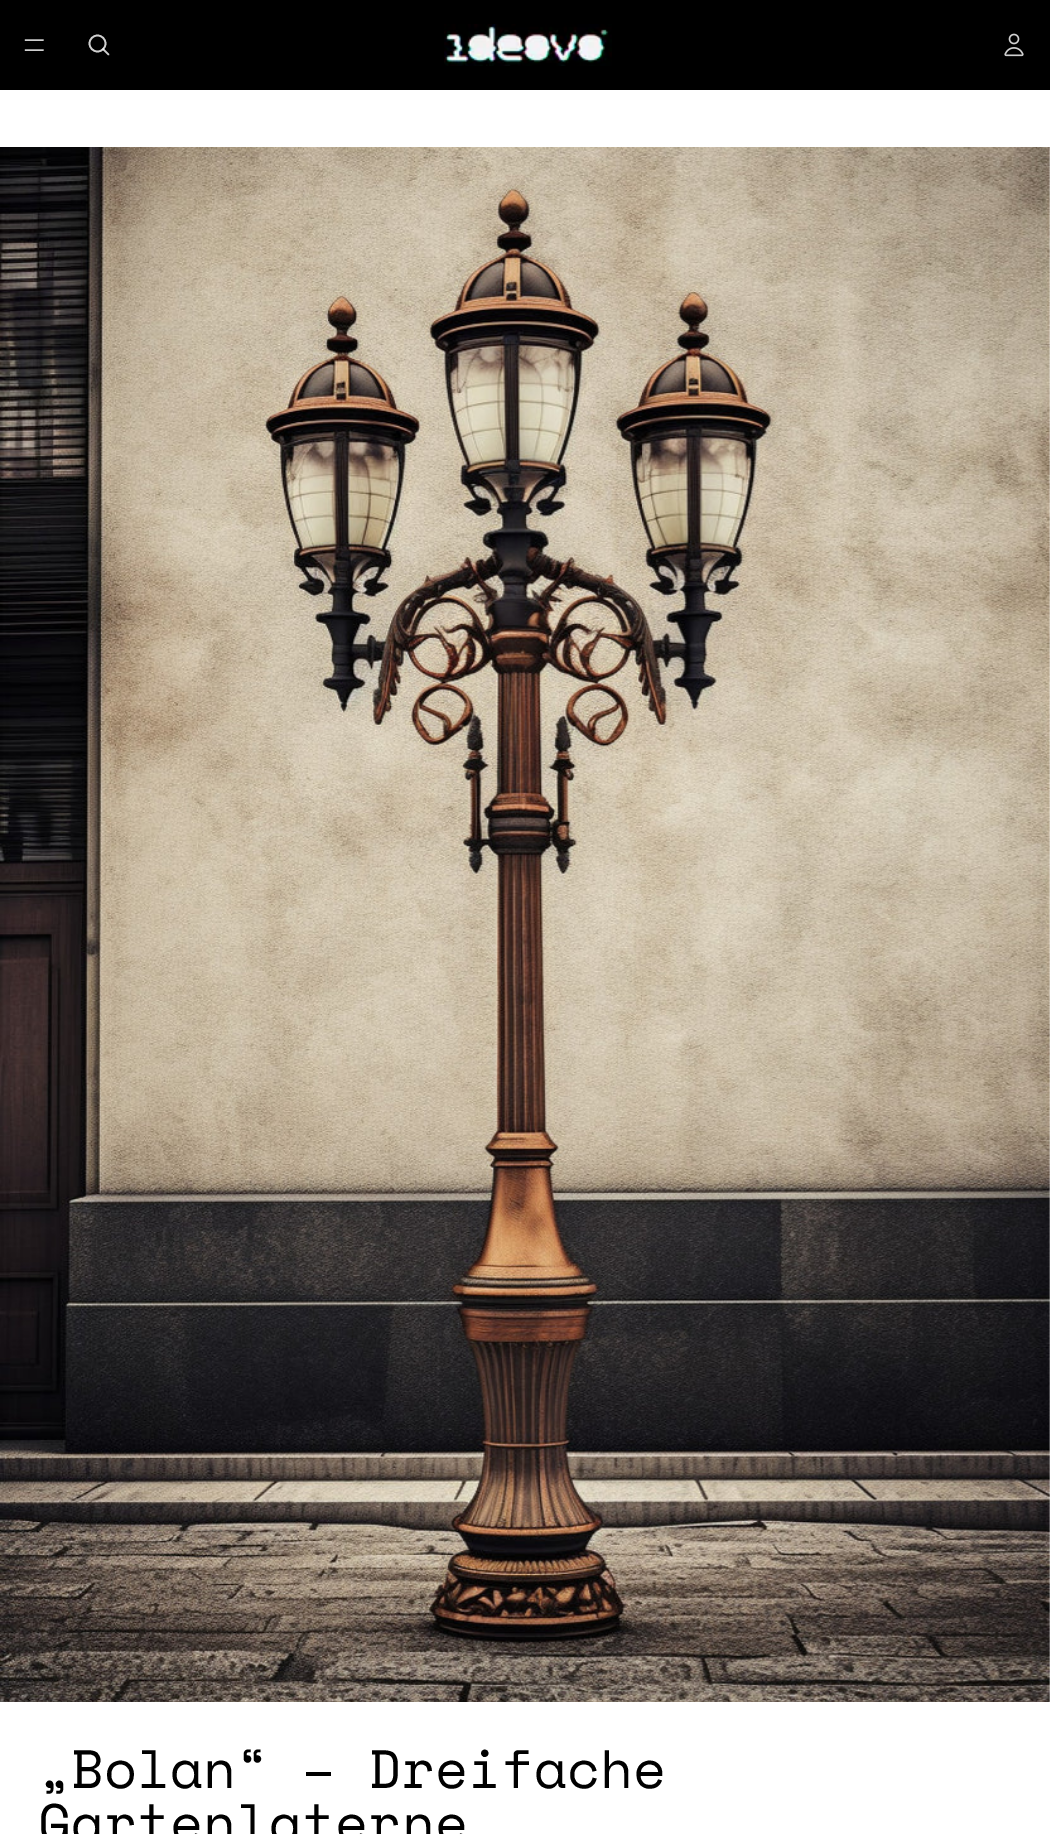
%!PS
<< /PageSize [1050 1834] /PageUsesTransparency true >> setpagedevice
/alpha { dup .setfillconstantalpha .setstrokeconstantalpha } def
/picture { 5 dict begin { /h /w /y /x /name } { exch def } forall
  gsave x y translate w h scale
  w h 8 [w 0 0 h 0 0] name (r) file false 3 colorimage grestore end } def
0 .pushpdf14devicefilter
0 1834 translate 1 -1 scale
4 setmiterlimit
1 setgray
0 0 1050 1834 rectfill
0 setgray
0 0 1050 90 rectfill
0.812 setgray
1.5 setlinewidth
1 setlinecap
newpath 25.5 40 moveto 43 40 lineto 25.5 50 moveto 43 50 lineto stroke
1.7 setlinewidth
0 setlinecap
newpath 97.5 43.5 8 0 360 arc closepath stroke
0.81 alpha
1 setgray
1 setlinecap
1 setlinejoin
newpath 103 49 moveto 108.5 54.5 lineto stroke
1 alpha
(img1.rgb) 444 24 168 42 picture
(img2.rgb) 1004 33 20 24 picture
(img3.rgb) 0 147 1050 1555 picture
/SpaceMono-Regular [54 0 0 -54 0 0] selectfont
0 setgray
38 1788 moveto („Bolan“ – Dreifache) show
38 1842 moveto (Gartenlaterne) show
.poppdf14devicefilter showpage
